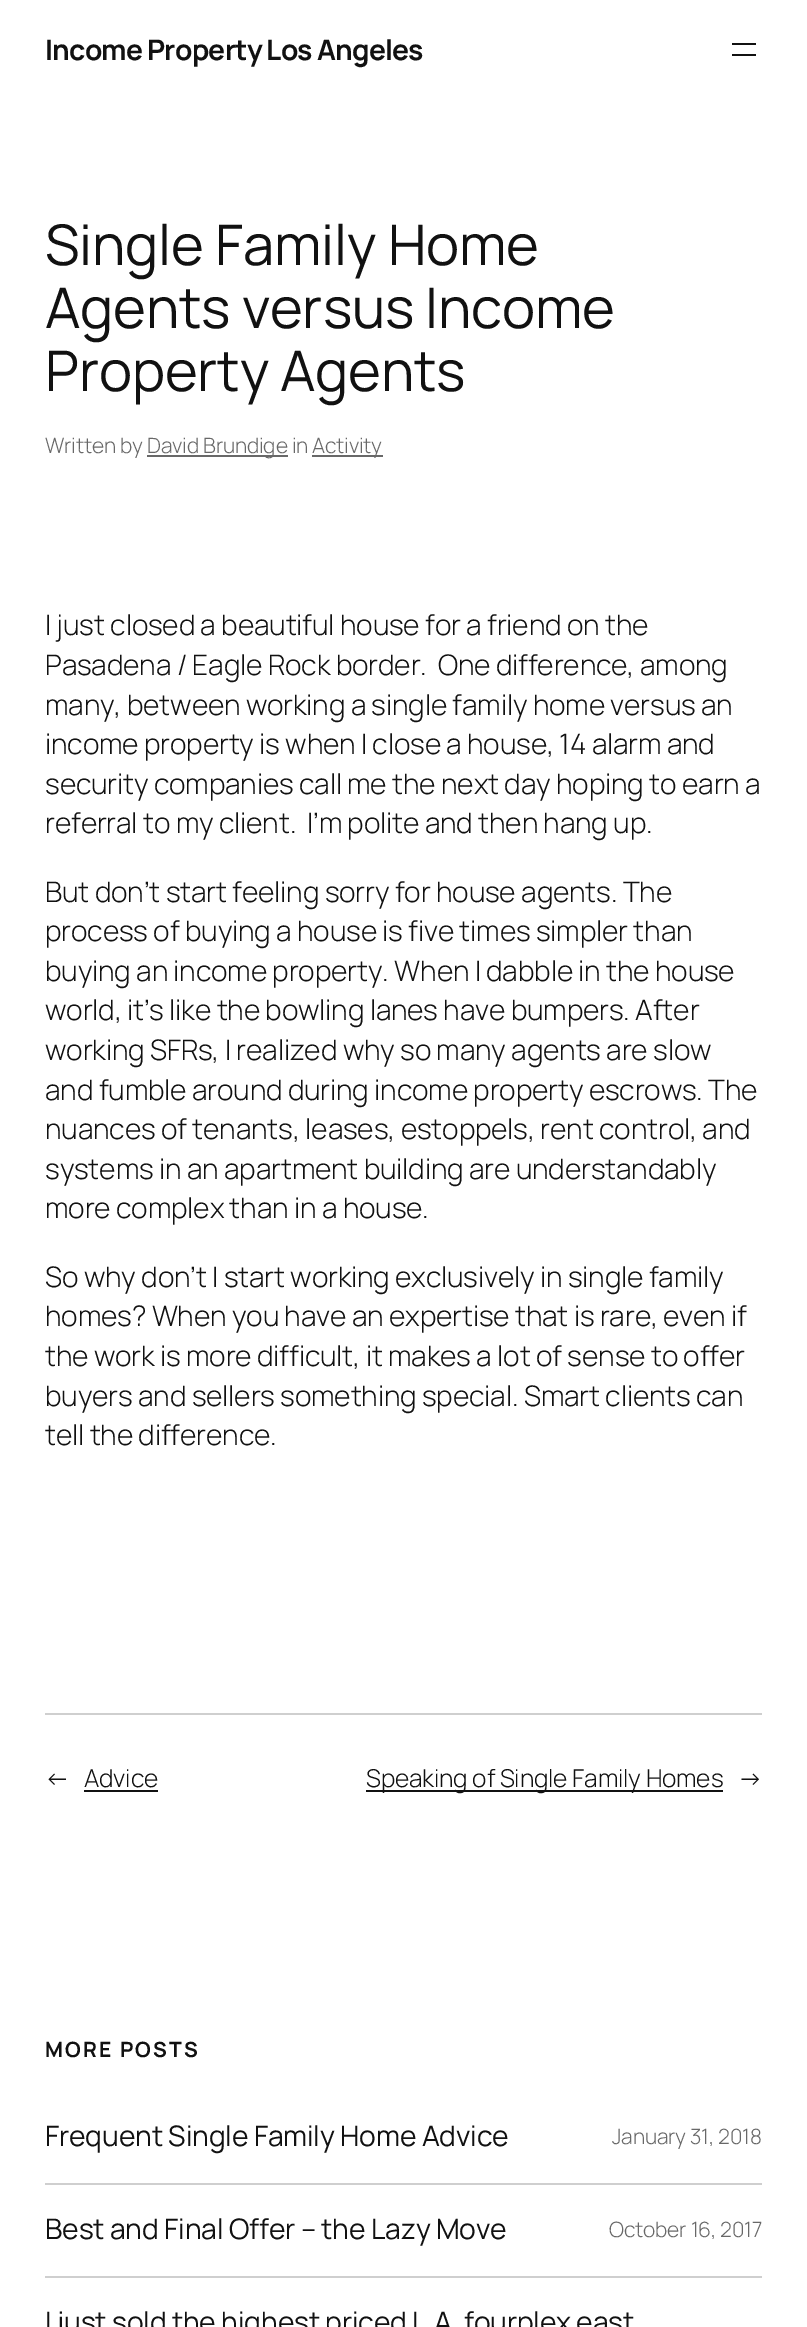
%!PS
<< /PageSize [807 2327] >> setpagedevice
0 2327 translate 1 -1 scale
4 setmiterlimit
1 setgray
0 0 807 2327 rectfill
/Manrope-Bold [28.25 0 0 -28.25 0 0] selectfont
0.067 setgray
45 60 moveto -0.75 0 (Income Property Los Angeles) ashow
732 43 24 2 rectfill
732 54 24 2 rectfill
/Manrope-Regular [56 0 0 -56 0 0] selectfont
45 265 moveto -0.15 0 (Single Family Home) ashow
45 328 moveto -0.15 0 (Agents versus Income) ashow
45 391 moveto -0.15 0 (Property Agents) ashow
/Manrope-Light [21 0 0 -21 0 0] selectfont
0.408 setgray
45 453 moveto -0.15 0 (Written by) ashow
147 455 141 2 rectfill
147 453 moveto -0.15 0 (David Brundige in) ashow
312 455 71 2 rectfill
312 453 moveto -0.15 0 (Activity) ashow
/Manrope-Light [28.25 0 0 -28.25 0 0] selectfont
0.067 setgray
45 635 moveto -0.15 0 (I just closed a beautiful house for a friend on the) ashow
45 675 moveto -0.15 0 (Pasadena / Eagle Rock border.  One difference, among) ashow
45 715 moveto -0.15 0 (many, between working a single family home versus an) ashow
45 754 moveto -0.15 0 (income property is when I close a house, 14 alarm and) ashow
45 794 moveto -0.15 0 (security companies call me the next day hoping to earn a) ashow
45 833 moveto -0.15 0 (referral to my client.  I’m polite and then hang up.) ashow
45 902 moveto -0.15 0 (But don’t start feeling sorry for house agents. The) ashow
45 941 moveto -0.15 0 (process of buying a house is five times simpler than) ashow
45 981 moveto -0.15 0 (buying an income property. When I dabble in the house) ashow
45 1020 moveto -0.15 0 (world, it’s like the bowling lanes have bumpers. After) ashow
45 1060 moveto -0.15 0 (working SFRs, I realized why so many agents are slow) ashow
45 1100 moveto -0.15 0 (and fumble around during income property escrows. The) ashow
45 1139 moveto -0.15 0 (nuances of tenants, leases, estoppels, rent control, and) ashow
45 1179 moveto -0.15 0 (systems in an apartment building are understandably) ashow
45 1218 moveto -0.15 0 (more complex than in a house.) ashow
45 1287 moveto -0.15 0 (So why don’t I start working exclusively in single family) ashow
45 1326 moveto -0.15 0 (homes? When you have an expertise that is rare, even if) ashow
45 1366 moveto -0.15 0 (the work is more difficult, it makes a lot of sense to offer) ashow
45 1406 moveto -0.15 0 (buyers and sellers something special. Smart clients can) ashow
45 1445 moveto -0.15 0 (tell the difference.) ashow
0.812 setgray
45 1713 717 2 rectfill
/Manrope-Light [24.6 0 0 -24.6 0 0] selectfont
0.067 setgray
45 1787 moveto -0.15 0 (←) ashow
84 1787 moveto -0.15 0 (Advice) ashow
84 1790 74 2 rectfill
366 1790 357 2 rectfill
366 1787 moveto -0.15 0 (Speaking of Single Family Homes) ashow
738 1787 moveto -0.15 0 (→) ashow
/Manrope-Bold [21 0 0 -21 0 0] selectfont
45 2057 moveto 2.1 0 (MORE POSTS) ashow
0.812 setgray
45 2183 717 2 rectfill
/Manrope-Regular [28.25 0 0 -28.25 0 0] selectfont
0.067 setgray
45 2146 moveto -0.15 0 (Frequent Single Family Home Advice) ashow
/Manrope-Light [21 0 0 -21 0 0] selectfont
0.408 setgray
612 2144 moveto -0.15 0 (January 31, 2018) ashow
0.812 setgray
45 2276 717 2 rectfill
/Manrope-Regular [28.25 0 0 -28.25 0 0] selectfont
0.067 setgray
45 2239 moveto -0.15 0 (Best and Final Offer – the Lazy Move) ashow
/Manrope-Light [21 0 0 -21 0 0] selectfont
0.408 setgray
609 2237 moveto -0.15 0 (October 16, 2017) ashow
/Manrope-Regular [28.25 0 0 -28.25 0 0] selectfont
0.067 setgray
45 2332 moveto -0.15 0 (I just sold the highest priced L.A. fourplex east) ashow
showpage
